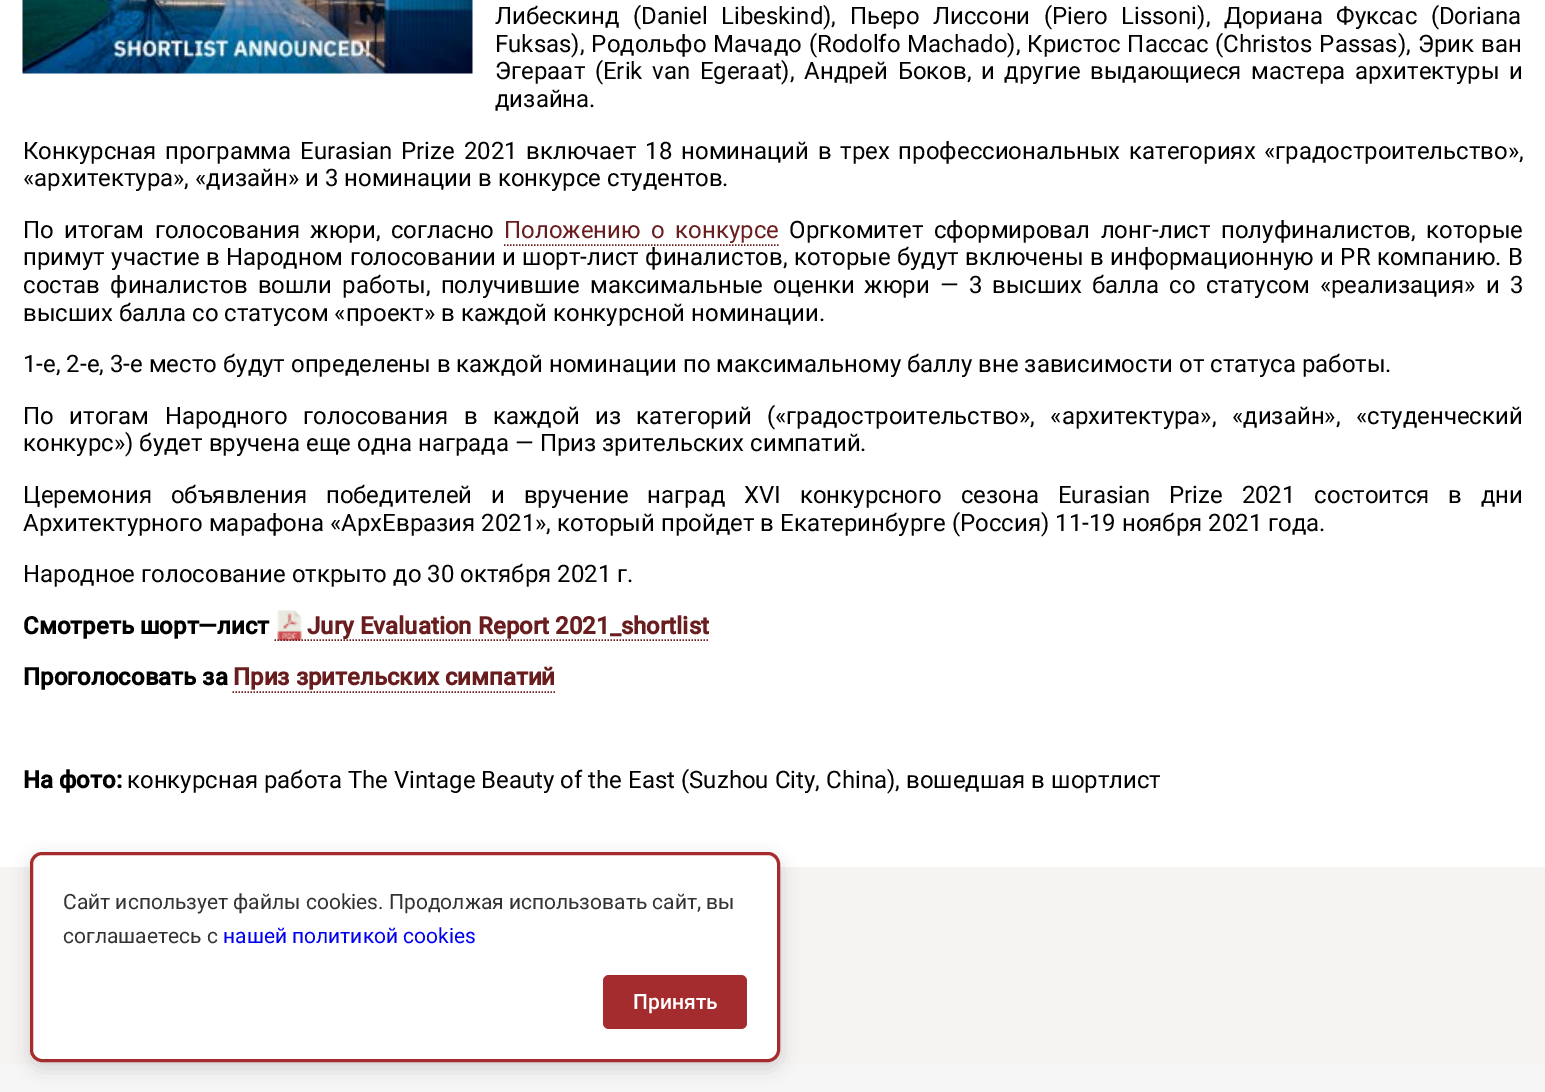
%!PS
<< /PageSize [1545 1092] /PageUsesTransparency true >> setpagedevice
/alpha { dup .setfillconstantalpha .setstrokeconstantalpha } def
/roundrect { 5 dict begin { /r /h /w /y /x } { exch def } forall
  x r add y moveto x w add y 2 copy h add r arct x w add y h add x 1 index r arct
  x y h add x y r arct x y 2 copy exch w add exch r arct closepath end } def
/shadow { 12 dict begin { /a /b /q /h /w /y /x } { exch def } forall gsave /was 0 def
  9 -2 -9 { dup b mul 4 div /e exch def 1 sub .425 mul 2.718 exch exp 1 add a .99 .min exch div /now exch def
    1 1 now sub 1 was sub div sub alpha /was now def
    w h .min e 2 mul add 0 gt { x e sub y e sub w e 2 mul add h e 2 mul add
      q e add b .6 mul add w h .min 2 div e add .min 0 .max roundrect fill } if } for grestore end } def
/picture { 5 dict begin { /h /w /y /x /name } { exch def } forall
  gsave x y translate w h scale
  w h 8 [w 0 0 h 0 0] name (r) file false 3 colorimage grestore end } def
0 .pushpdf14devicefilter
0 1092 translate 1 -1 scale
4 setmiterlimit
1 setgray
0 0 1545 1092 rectfill
(img1.rgb) 22 0 451 74 picture
/Roboto-Regular [24 0 0 -24 0 0] selectfont
0 setgray
495 24 moveto 7.5 0 32 (Либескинд \(Daniel Libeskind\), Пьеро Лиссони \(Piero Lissoni\), Дориана Фуксас \(Doriana) widthshow
495 52 moveto 1 0 32 (Fuksas\), Родольфо Мачадо \(Rodolfo Machado\), Кристос Пассaс \(Christos Passas\), Эрик ван) widthshow
495 79 moveto 3.6 0 32 (Эгераат \(Erik van Egeraat\), Андрей Боков, и другие выдающиеся мастера архитектуры и) widthshow
495 107 moveto (дизайна.) show
23 159 moveto 2.75 0 32 (Конкурсная программа Eurasian Prize 2021 включает 18 номинаций в трех профессиональных категориях «градостроительство»,) widthshow
23 186 moveto («архитектура», «дизайн» и 3 номинации в конкурсе студентов.) show
23 238 moveto 4.5 0 32 (По итогам голосования жюри, согласно) widthshow
0.416 0.114 0.118 setrgbcolor
504 238 moveto 4.5 0 32 (Положению о конкурсе) widthshow
1.5 setlinewidth
[1.5 1.5] 0 setdash
newpath 504 245 moveto 778.5 245 lineto stroke
0 setgray
789 238 moveto 4.5 0 32 (Оргкомитет сформировал лонг-лист полуфиналистов, которые) widthshow
23 265 moveto 0.5 0 32 (примут участие в Народном голосовании и шорт-лист финалистов, которые будут включены в информационную и PR компанию. В) widthshow
23 293 moveto 4.1 0 32 (состав финалистов вошли работы, получившие максимальные оценки жюри — 3 высших балла со статусом «реализация» и 3) widthshow
23 321 moveto (высших балла со статусом «проект» в каждой конкурсной номинации.) show
23 372 moveto (1-е, 2-е, 3-е место будут определены в каждой номинации по максимальному баллу вне зависимости от статуса работы.) show
23 424 moveto 9.5 0 32 (По итогам Народного голосования в каждой из категорий \(«градостроительство», «архитектура», «дизайн», «студенческий) widthshow
23 451 moveto (конкурс»\) будет вручена еще одна награда — Приз зрительских симпатий.) show
23 503 moveto 12.9 0 32 (Церемония объявления победителей и вручение наград XVI конкурсного сезона Eurasian Prize 2021 состоится в дни) widthshow
23 531 moveto (Архитектурного марафона «АрхЕвразия 2021», который пройдет в Екатеринбурге \(Россия\) 11-19 ноября 2021 года.) show
23 582 moveto (Народное голосование открыто до 30 октября 2021 г.) show
/Roboto-Bold [24 0 0 -24 0 0] selectfont
23 634 moveto (Смотреть шорт—лист) show
(img2.rgb) 277 610 25 31 picture
0.416 0.114 0.118 setrgbcolor
newpath 274.5 640 moveto 709.5 640 lineto stroke
307 634 moveto (Jury Evaluation Report 2021_shortlist) show
0 setgray
23 685 moveto (Проголосовать за) show
0.416 0.114 0.118 setrgbcolor
233 685 moveto (Приз зрительских симпатий) show
newpath 232.5 692 moveto 555 692 lineto stroke
0 setgray
23 788 moveto (На фото:) show
/Roboto-Regular [24 0 0 -24 0 0] selectfont
127 788 moveto (конкурсная работа The Vintage Beauty of the East \(Suzhou City, China\), вошедшая в шортлист) show
0.965 0.953 0.953 setrgbcolor
0 867 1545 197 rectfill
0.965 setgray
0 1064 1545 28 rectfill
0 setgray
30 858 750 210 12 9 0.15 shadow
1 setgray
31.5 853.5 747 207 10.5 roundrect gsave fill grestore
0.643 0.173 0.18 setrgbcolor
3 setlinewidth
[] 0 setdash
stroke
/Roboto-Regular [21 0 0 -21 0 0] selectfont
0.2 setgray
63 909 moveto (Сайт использует файлы cookies. Продолжая использовать сайт, вы) show
63 943 moveto (соглашаетесь с) show
0 0 0.933 setrgbcolor
223 943 moveto (нашей политикой cookies) show
0.643 0.173 0.18 setrgbcolor
603 975 144 54 6 roundrect fill
/Roboto-Medium [21 0 0 -21 0 0] selectfont
1 setgray
633 1009 moveto (Принять) show
.poppdf14devicefilter showpage
